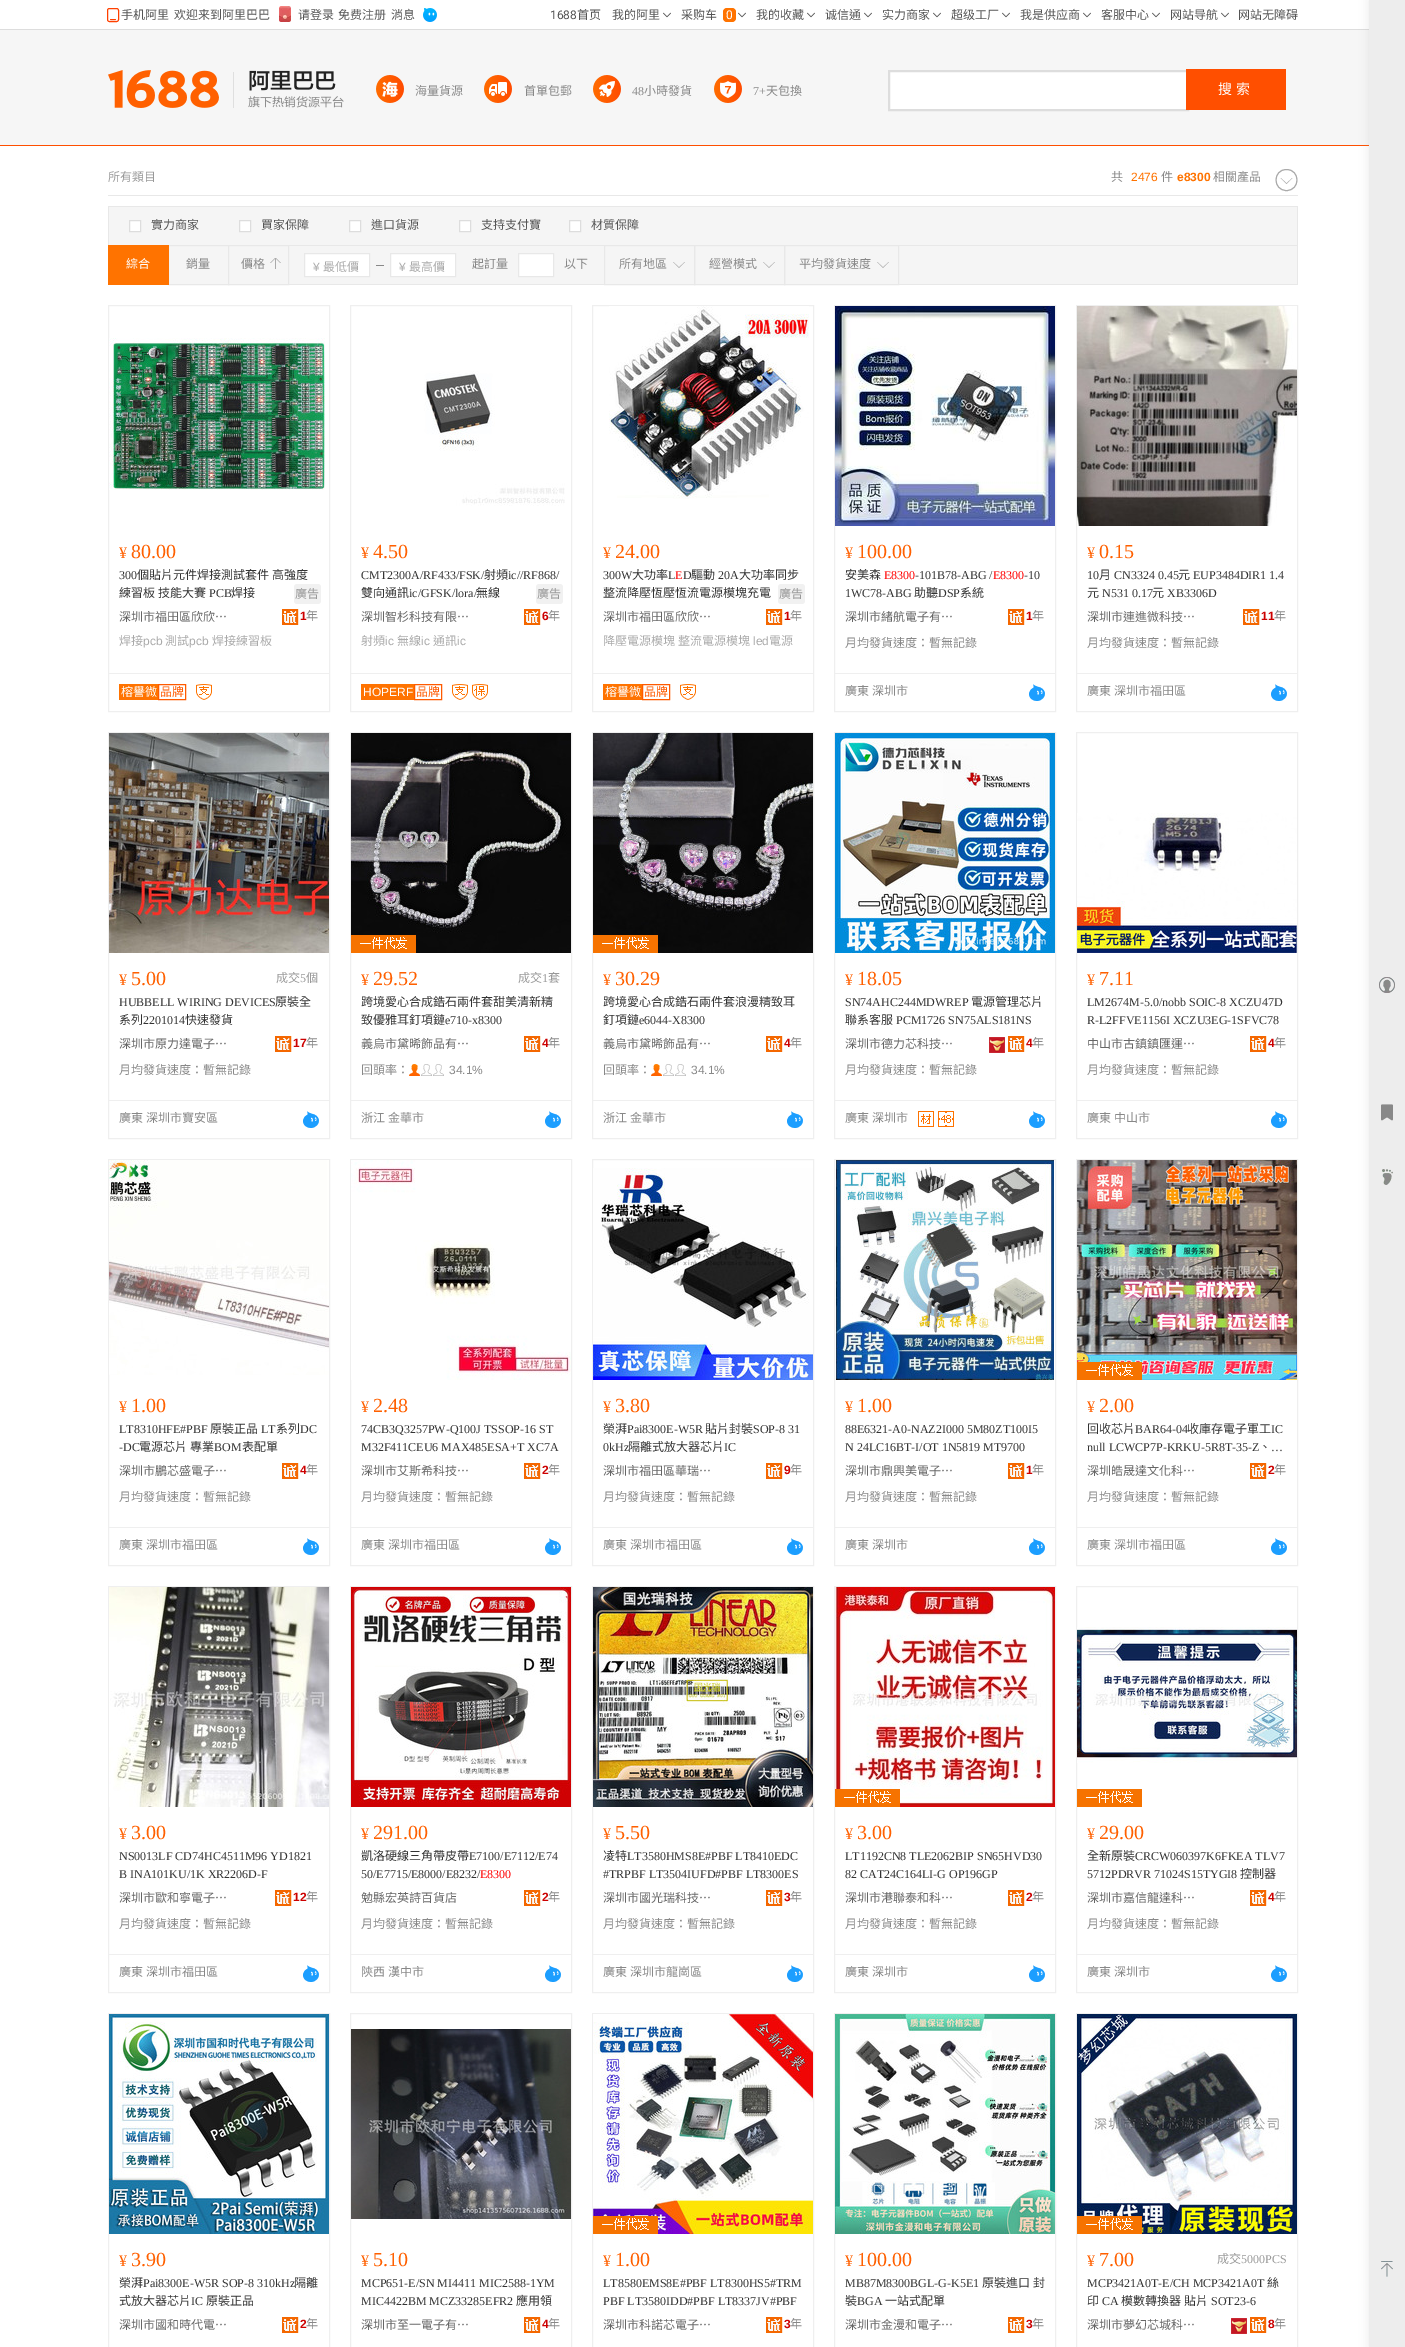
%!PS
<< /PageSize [1405 2347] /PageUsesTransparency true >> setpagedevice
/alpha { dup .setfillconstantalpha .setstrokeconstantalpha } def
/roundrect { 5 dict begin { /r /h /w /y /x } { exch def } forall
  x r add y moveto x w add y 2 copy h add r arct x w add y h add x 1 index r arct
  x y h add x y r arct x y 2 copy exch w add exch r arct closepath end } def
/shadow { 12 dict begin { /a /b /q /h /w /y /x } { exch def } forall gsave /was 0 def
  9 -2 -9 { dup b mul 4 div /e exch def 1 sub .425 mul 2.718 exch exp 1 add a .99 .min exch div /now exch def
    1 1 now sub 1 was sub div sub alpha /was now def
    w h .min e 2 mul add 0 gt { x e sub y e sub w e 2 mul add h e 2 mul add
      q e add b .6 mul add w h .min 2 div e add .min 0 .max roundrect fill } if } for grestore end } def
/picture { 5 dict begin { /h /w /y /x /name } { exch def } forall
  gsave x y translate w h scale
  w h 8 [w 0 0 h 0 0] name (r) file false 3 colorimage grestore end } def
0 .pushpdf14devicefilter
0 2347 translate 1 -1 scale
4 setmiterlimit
1 setgray
0 0 1405 2347 rectfill
0.867 setgray
0 29 1369 1 rectfill
1 0.251 0 setrgbcolor
107.5 8.5 11 13 2 roundrect stroke
/NotoSansCJKTC-Regular [12 0 0 -12 0 0] selectfont
0.333 setgray
121 19 moveto (手机阿里) show
1 0.251 0 setrgbcolor
1 setlinecap
1 setlinejoin
newpath 110.5 19.5 moveto 115.5 19.5 lineto stroke
0.333 setgray
174 19 moveto (欢迎来到阿里巴巴) show
(img1.rgb) 279 6 12 16 picture
298 19 moveto (请登录) show
338 19 moveto (免费注册) show
391 19 moveto (消息) show
(img2.rgb) 423 8 14 14 picture
/Roboto-Regular [12 0 0 -12 0 0] selectfont
550 19 moveto (1688) show
/NotoSansCJKTC-Regular [12 0 0 -12 0 0] selectfont
577 19 moveto (首页) show
612 19 moveto (我的阿里) show
(img3.rgb) 663 12 8 6 picture
681 19 moveto (采购车) show
1 0.451 0 setrgbcolor
723 8 13 14 4 roundrect fill
/Roboto-Regular [12 0 0 -12 0 0] selectfont
1 setgray
726 19 moveto (0) show
(img3.rgb) 738 12 8 6 picture
/NotoSansCJKTC-Regular [12 0 0 -12 0 0] selectfont
0.333 setgray
756 19 moveto (我的收藏) show
(img3.rgb) 807 12 8 6 picture
825 19 moveto (诚信通) show
(img3.rgb) 864 12 8 6 picture
882 19 moveto (实力商家) show
(img3.rgb) 933 12 8 6 picture
951 19 moveto (超级工厂) show
(img3.rgb) 1002 12 8 6 picture
1020 19 moveto (我是供应商) show
(img3.rgb) 1083 12 8 6 picture
1101 19 moveto (客服中心) show
(img3.rgb) 1152 12 8 6 picture
1170 19 moveto (网站导航) show
(img3.rgb) 1221 12 8 6 picture
1238 19 moveto (网站无障碍) show
0.965 setgray
0 30 1369 115 rectfill
1 0.31 0 setrgbcolor
0 145 1369 1 rectfill
(img4.rgb) 108 70 111 38 picture
0.875 setgray
233 72 1 36 rectfill
(img5.rgb) 248 70 96 38 picture
(img6.rgb) 376 75 28 28 picture
0.533 setgray
415 95 moveto (海量貨源) show
(img7.rgb) 484 75 28 28 picture
524 95 moveto (首單包郵) show
(img8.rgb) 593 75 28 28 picture
/LiberationSerif-Regular [12 0 0 -12 0 0] selectfont
632 95 moveto (48) show
/NotoSansCJKTC-Regular [12 0 0 -12 0 0] selectfont
644 95 moveto (小時發貨) show
(img9.rgb) 714 75 28 28 picture
/LiberationSerif-Regular [12 0 0 -12 0 0] selectfont
753 95 moveto (7+) show
/NotoSansCJKTC-Regular [12 0 0 -12 0 0] selectfont
766 95 moveto (天包換) show
1 setgray
890 72 296 37 rectfill
0.867 setgray
2 setlinewidth
0 setlinecap
0 setlinejoin
889 71 299 39 rectstroke
1 0.31 0 setrgbcolor
1186 69 100 41 rectfill
/NotoSansCJKTC-Regular [14 0 0 -14 0 0] selectfont
1 setgray
1218 94 moveto 4 0 (搜索) ashow
0.6 setgray
1369 0 36 2347 0 5 0.2 shadow
0.929 setgray
1369 0 36 2347 rectfill
(img10.rgb) 1379 977 16 16 picture
(img11.rgb) 1381 1104 12 17 picture
(img12.rgb) 1382 1169 11 16 picture
(img13.rgb) 1381 2261 12 16 picture
0.667 setgray
1 setlinewidth
newpath 1286.5 190.5 moveto 1272.5 190.5 1272.5 169.5 1286.5 169.5 curveto 1300.5 169.5 1300.5 190.5 1286.5 190.5 curveto closepath stroke
newpath 1280.5 178 moveto 1292.5 178 lineto 1286.5 184 lineto closepath fill
gsave
1281 178 12 6 rectclip
1 setgray
newpath 1280.5 177 moveto 1292.5 177 lineto 1286.5 183 lineto closepath fill
grestore
0.91 setgray
108 195 1190 1 rectfill
/NotoSansCJKTC-Regular [12 0 0 -12 0 0] selectfont
0.6 setgray
108 181 moveto (所有類目) show
0.533 setgray
1111 181 moveto (共) show
/LiberationSans-Regular [12 0 0 -12 0 0] selectfont
1 0.451 0 setrgbcolor
1131 181 moveto (2476) show
/NotoSansCJKTC-Regular [12 0 0 -12 0 0] selectfont
0.533 setgray
1161 181 moveto (件) show
/LiberationSans-Bold [12 0 0 -12 0 0] selectfont
1 0.451 0 setrgbcolor
1177 181 moveto (e8300) show
/NotoSansCJKTC-Regular [12 0 0 -12 0 0] selectfont
0.533 setgray
1213 181 moveto (相關產品) show
0.961 setgray
109 207 1188 38 rectfill
0.91 setgray
108 206 1190 1 rectfill
1297 206 1 39 rectfill
108 206 1 39 rectfill
1 setgray
newpath 129.5 220.5 moveto 140.5 220.5 lineto 140.5 231.5 lineto 129.5 231.5 lineto closepath gsave fill grestore
0.867 setgray
stroke
0.333 setgray
151 229 moveto (實力商家) show
1 setgray
newpath 239.5 220.5 moveto 250.5 220.5 lineto 250.5 231.5 lineto 239.5 231.5 lineto closepath gsave fill grestore
0.867 setgray
stroke
0.333 setgray
261 229 moveto (買家保障) show
1 setgray
newpath 349.5 220.5 moveto 360.5 220.5 lineto 360.5 231.5 lineto 349.5 231.5 lineto closepath gsave fill grestore
0.867 setgray
stroke
0.333 setgray
371 229 moveto (進口貨源) show
1 setgray
newpath 459.5 220.5 moveto 470.5 220.5 lineto 470.5 231.5 lineto 459.5 231.5 lineto closepath gsave fill grestore
0.867 setgray
stroke
0.333 setgray
481 229 moveto (支持支付寶) show
1 setgray
newpath 569.5 220.5 moveto 580.5 220.5 lineto 580.5 231.5 lineto 569.5 231.5 lineto closepath gsave fill grestore
0.867 setgray
stroke
0.333 setgray
591 229 moveto (材質保障) show
0.961 setgray
289 246 1008 38 rectfill
0.91 setgray
289 245 1009 1 rectfill
1297 245 1 40 rectfill
289 284 1009 1 rectfill
0.961 setgray
newpath 168.5 245.5 moveto 228.5 245.5 lineto 228.5 284.5 lineto 168.5 284.5 lineto closepath gsave fill grestore
0.91 setgray
stroke
1 0.451 0 setrgbcolor
108 245 61 40 rectfill
1 setgray
126 268 moveto (綜合) show
0.533 setgray
186 268 moveto (銷量) show
0.961 setgray
newpath 228.5 245.5 moveto 288.5 245.5 lineto 288.5 284.5 lineto 228.5 284.5 lineto closepath gsave fill grestore
0.91 setgray
stroke
0.533 setgray
241 268 moveto (價格) show
0.667 setgray
newpath 281 263 moveto 270 263 lineto 275 258 lineto 276 258 lineto closepath fill
0.961 setgray
newpath 281 264 moveto 270 264 lineto 275 259 lineto 276 259 lineto closepath fill
0.667 setgray
275 258 1 11 rectfill
1 setgray
newpath 304.5 253.5 moveto 369.5 253.5 lineto 369.5 276.5 lineto 304.5 276.5 lineto closepath gsave fill grestore
0.91 setgray
stroke
/LiberationSans-Regular [12 0 0 -12 0 0] selectfont
0.667 setgray
313 271 moveto (¥) show
/NotoSansCJKTC-Regular [12 0 0 -12 0 0] selectfont
323 271 moveto (最低價) show
0.533 setgray
376 265 8 1 rectfill
1 setgray
newpath 390.5 253.5 moveto 455.5 253.5 lineto 455.5 276.5 lineto 390.5 276.5 lineto closepath gsave fill grestore
0.91 setgray
stroke
/LiberationSans-Regular [12 0 0 -12 0 0] selectfont
0.667 setgray
399 271 moveto (¥) show
/NotoSansCJKTC-Regular [12 0 0 -12 0 0] selectfont
409 271 moveto (最高價) show
0.533 setgray
472 268 moveto (起訂量) show
1 setgray
newpath 518.5 253.5 moveto 553.5 253.5 lineto 553.5 276.5 lineto 518.5 276.5 lineto closepath gsave fill grestore
0.91 setgray
stroke
0.533 setgray
564 268 moveto (以下) show
0.91 setgray
604.5 245.5 90 39 rectstroke
0.533 setgray
619 268 moveto (所有地區) show
0.667 setgray
newpath 673 262 moveto 685 262 lineto 679 268 lineto closepath fill
gsave
673 262 12 6 rectclip
0.961 setgray
newpath 673 261 moveto 685 261 lineto 679 267 lineto closepath fill
grestore
0.91 setgray
694.5 245.5 90 39 rectstroke
0.533 setgray
709 268 moveto (經營模式) show
0.667 setgray
newpath 763 262 moveto 775 262 lineto 769 268 lineto closepath fill
gsave
763 262 12 6 rectclip
0.961 setgray
newpath 763 261 moveto 775 261 lineto 769 267 lineto closepath fill
grestore
0.91 setgray
784.5 245.5 114 39 rectstroke
0.533 setgray
799 268 moveto (平均發貨速度) show
0.667 setgray
newpath 877 262 moveto 889 262 lineto 883 268 lineto closepath fill
gsave
877 262 12 6 rectclip
0.961 setgray
newpath 877 261 moveto 889 261 lineto 883 267 lineto closepath fill
grestore
0.937 setgray
108.5 305.5 221 406 rectstroke
(img14.rgb) 109 338 216 152 picture
/LiberationSerif-Regular [16 0 0 -16 0 0] selectfont
1 0.376 0 setrgbcolor
119 558 moveto (¥) show
/LiberationSerif-Regular [20 0 0 -20 0 0] selectfont
131 558 moveto (80.00) show
/LiberationSerif-Regular [12 0 0 -12 0 0] selectfont
0.2 setgray
119 579 moveto (300) show
/NotoSansCJKTC-Regular [12 0 0 -12 0 0] selectfont
137 579 moveto (個貼片元件焊接測試套件 高強度) show
119 597 moveto (練習板 技能大賽) show
/LiberationSerif-Regular [12 0 0 -12 0 0] selectfont
209 597 moveto (PCB) show
/NotoSansCJKTC-Regular [12 0 0 -12 0 0] selectfont
231 597 moveto (焊接) show
0.945 setgray
294 584 27 20 3 roundrect fill
0.6 setgray
295 598 moveto (廣告) show
0.4 setgray
119 621 moveto (深圳市福田區欣欣…) show
(img15.rgb) 282 609 17 16 picture
/LiberationSans-Bold [12 0 0 -12 0 0] selectfont
0.8 0 0 setrgbcolor
300 620 moveto (1) show
/NotoSansCJKTC-Regular [12 0 0 -12 0 0] selectfont
0.533 setgray
306 620 moveto (年) show
0.667 setgray
119 645 moveto (焊接) show
/LiberationSans-Regular [12 0 0 -12 0 0] selectfont
143 645 moveto (pcb) show
/NotoSansCJKTC-Regular [12 0 0 -12 0 0] selectfont
165 645 moveto (測試) show
/LiberationSans-Regular [12 0 0 -12 0 0] selectfont
189 645 moveto (pcb) show
/NotoSansCJKTC-Regular [12 0 0 -12 0 0] selectfont
212 645 moveto (焊接練習板) show
0.937 setgray
109 673 220 1 rectfill
1 0.451 0 setrgbcolor
119 684 39 16 rectfill
1 setgray
121 696 moveto (榕譽微) show
1 0.353 0 setrgbcolor
158.5 684.5 27 15 rectstroke
160 696 moveto (品牌) show
(img16.rgb) 196 684 16 16 picture
0.937 setgray
350.5 305.5 221 406 rectstroke
(img17.rgb) 424 371 141 135 picture
/LiberationSerif-Regular [16 0 0 -16 0 0] selectfont
1 0.376 0 setrgbcolor
361 558 moveto (¥) show
/LiberationSerif-Regular [20 0 0 -20 0 0] selectfont
373 558 moveto (4.50) show
/LiberationSerif-Regular [12 0 0 -12 0 0] selectfont
0.2 setgray
361 579 moveto (CMT2300A/RF433/FSK/) show
/NotoSansCJKTC-Regular [12 0 0 -12 0 0] selectfont
484 579 moveto (射頻) show
/LiberationSerif-Regular [12 0 0 -12 0 0] selectfont
508 579 moveto (ic//RF868/) show
/NotoSansCJKTC-Regular [12 0 0 -12 0 0] selectfont
361 597 moveto (雙向通訊) show
/LiberationSerif-Regular [12 0 0 -12 0 0] selectfont
409 597 moveto (ic/GFSK/lora/) show
/NotoSansCJKTC-Regular [12 0 0 -12 0 0] selectfont
476 597 moveto (無線) show
0.945 setgray
536 584 27 20 3 roundrect fill
0.6 setgray
537 598 moveto (廣告) show
0.4 setgray
361 621 moveto (深圳智杉科技有限…) show
(img15.rgb) 524 609 17 16 picture
/LiberationSans-Bold [12 0 0 -12 0 0] selectfont
0.8 0 0 setrgbcolor
542 620 moveto (6) show
/NotoSansCJKTC-Regular [12 0 0 -12 0 0] selectfont
0.533 setgray
548 620 moveto (年) show
0.667 setgray
361 645 moveto (射頻) show
/LiberationSans-Regular [12 0 0 -12 0 0] selectfont
385 645 moveto (ic) show
/NotoSansCJKTC-Regular [12 0 0 -12 0 0] selectfont
397 645 moveto (無線) show
/LiberationSans-Regular [12 0 0 -12 0 0] selectfont
421 645 moveto (ic) show
/NotoSansCJKTC-Regular [12 0 0 -12 0 0] selectfont
433 645 moveto (通訊) show
/LiberationSans-Regular [12 0 0 -12 0 0] selectfont
457 645 moveto (ic) show
0.937 setgray
351 673 220 1 rectfill
1 0.451 0 setrgbcolor
361 684 53 16 rectfill
1 setgray
363 696 moveto (HOPERF) show
1 0.353 0 setrgbcolor
414.5 684.5 27 15 rectstroke
/NotoSansCJKTC-Regular [12 0 0 -12 0 0] selectfont
416 696 moveto (品牌) show
(img16.rgb) 452 684 16 16 picture
(img18.rgb) 472 684 16 16 picture
0.937 setgray
592.5 305.5 221 406 rectstroke
(img19.rgb) 609 306 200 193 picture
/LiberationSerif-Regular [16 0 0 -16 0 0] selectfont
1 0.376 0 setrgbcolor
603 558 moveto (¥) show
/LiberationSerif-Regular [20 0 0 -20 0 0] selectfont
615 558 moveto (24.00) show
/LiberationSerif-Regular [12 0 0 -12 0 0] selectfont
0.2 setgray
603 579 moveto (300W) show
/NotoSansCJKTC-Regular [12 0 0 -12 0 0] selectfont
632 579 moveto (大功率) show
/LiberationSerif-Regular [12 0 0 -12 0 0] selectfont
668 579 moveto (L) show
1 0 0 setrgbcolor
675 579 moveto (E) show
0.2 setgray
683 579 moveto (D) show
/NotoSansCJKTC-Regular [12 0 0 -12 0 0] selectfont
691 579 moveto (驅動) show
/LiberationSerif-Regular [12 0 0 -12 0 0] selectfont
718 579 moveto (20A) show
/NotoSansCJKTC-Regular [12 0 0 -12 0 0] selectfont
739 579 moveto (大功率同步) show
603 597 moveto (整流降壓恆壓恆流電源模塊充電) show
0.945 setgray
778 584 27 20 3 roundrect fill
0.6 setgray
779 598 moveto (廣告) show
0.4 setgray
603 621 moveto (深圳市福田區欣欣…) show
(img15.rgb) 766 609 17 16 picture
/LiberationSans-Bold [12 0 0 -12 0 0] selectfont
0.8 0 0 setrgbcolor
784 620 moveto (1) show
/NotoSansCJKTC-Regular [12 0 0 -12 0 0] selectfont
0.533 setgray
790 620 moveto (年) show
0.667 setgray
603 645 moveto (降壓電源模塊) show
678 645 moveto (整流電源模塊) show
/LiberationSans-Regular [12 0 0 -12 0 0] selectfont
753 645 moveto (led) show
/NotoSansCJKTC-Regular [12 0 0 -12 0 0] selectfont
769 645 moveto (電源) show
0.937 setgray
593 673 220 1 rectfill
1 0.451 0 setrgbcolor
603 684 39 16 rectfill
1 setgray
605 696 moveto (榕譽微) show
1 0.353 0 setrgbcolor
642.5 684.5 27 15 rectstroke
644 696 moveto (品牌) show
(img16.rgb) 680 684 16 16 picture
0.937 setgray
834.5 305.5 221 406 rectstroke
(img20.rgb) 835 306 220 220 picture
/LiberationSerif-Regular [16 0 0 -16 0 0] selectfont
1 0.376 0 setrgbcolor
845 558 moveto (¥) show
/LiberationSerif-Regular [20 0 0 -20 0 0] selectfont
857 558 moveto (100.00) show
/NotoSansCJKTC-Regular [12 0 0 -12 0 0] selectfont
0.2 setgray
845 579 moveto (安美森) show
/LiberationSerif-Regular [12 0 0 -12 0 0] selectfont
1 0 0 setrgbcolor
884 579 moveto (E8300) show
0.2 setgray
915 579 moveto (-101B78-ABG /) show
1 0 0 setrgbcolor
993 579 moveto (E8300) show
0.2 setgray
1024 579 moveto (-10) show
845 597 moveto (1WC78-ABG) show
/NotoSansCJKTC-Regular [12 0 0 -12 0 0] selectfont
914 597 moveto (助聽) show
/LiberationSerif-Regular [12 0 0 -12 0 0] selectfont
938 597 moveto (DSP) show
/NotoSansCJKTC-Regular [12 0 0 -12 0 0] selectfont
960 597 moveto (系統) show
0.4 setgray
845 621 moveto (深圳市緒航電子有…) show
(img15.rgb) 1008 609 17 16 picture
/LiberationSans-Bold [12 0 0 -12 0 0] selectfont
0.8 0 0 setrgbcolor
1026 620 moveto (1) show
/NotoSansCJKTC-Regular [12 0 0 -12 0 0] selectfont
0.533 setgray
1032 620 moveto (年) show
845 647 moveto (月均發貨速度：暫無記錄) show
0.937 setgray
835 673 220 1 rectfill
0.533 setgray
845 695 moveto (廣東 深圳市) show
(img21.rgb) 1029 684 16 17 picture
0.937 setgray
1076.5 305.5 221 406 rectstroke
(img22.rgb) 1077 306 220 220 picture
/LiberationSerif-Regular [16 0 0 -16 0 0] selectfont
1 0.376 0 setrgbcolor
1087 558 moveto (¥) show
/LiberationSerif-Regular [20 0 0 -20 0 0] selectfont
1099 558 moveto (0.15) show
/LiberationSerif-Regular [12 0 0 -12 0 0] selectfont
0.2 setgray
1087 579 moveto (10) show
/NotoSansCJKTC-Regular [12 0 0 -12 0 0] selectfont
1099 579 moveto (月) show
/LiberationSerif-Regular [12 0 0 -12 0 0] selectfont
1114 579 moveto (CN3324 0.45) show
/NotoSansCJKTC-Regular [12 0 0 -12 0 0] selectfont
1178 579 moveto (元) show
/LiberationSerif-Regular [12 0 0 -12 0 0] selectfont
1193 579 moveto (EUP3484DIR1 1.4) show
/NotoSansCJKTC-Regular [12 0 0 -12 0 0] selectfont
1087 597 moveto (元) show
/LiberationSerif-Regular [12 0 0 -12 0 0] selectfont
1102 597 moveto (N531 0.17) show
/NotoSansCJKTC-Regular [12 0 0 -12 0 0] selectfont
1152 597 moveto (元) show
/LiberationSerif-Regular [12 0 0 -12 0 0] selectfont
1167 597 moveto (XB3306D) show
/NotoSansCJKTC-Regular [12 0 0 -12 0 0] selectfont
0.4 setgray
1087 621 moveto (深圳市連進微科技…) show
(img23.rgb) 1243 609 17 16 picture
/LiberationSans-Bold [12 0 0 -12 0 0] selectfont
0.8 0 0 setrgbcolor
1261 620 moveto (11) show
/NotoSansCJKTC-Regular [12 0 0 -12 0 0] selectfont
0.533 setgray
1274 620 moveto (年) show
1087 647 moveto (月均發貨速度：暫無記錄) show
0.937 setgray
1077 673 220 1 rectfill
0.533 setgray
1087 695 moveto (廣東 深圳市福田區) show
(img21.rgb) 1271 684 16 17 picture
0.937 setgray
108.5 732.5 221 406 rectstroke
(img24.rgb) 109 733 220 220 picture
/LiberationSerif-Regular [16 0 0 -16 0 0] selectfont
1 0.376 0 setrgbcolor
119 985 moveto (¥) show
/LiberationSerif-Regular [20 0 0 -20 0 0] selectfont
131 985 moveto (5.00) show
/NotoSansCJKTC-Regular [12 0 0 -12 0 0] selectfont
0.6 setgray
276 982 moveto (成交) show
/LiberationSerif-Regular [12 0 0 -12 0 0] selectfont
300 982 moveto (5) show
/NotoSansCJKTC-Regular [12 0 0 -12 0 0] selectfont
306 982 moveto (個) show
/LiberationSerif-Regular [12 0 0 -12 0 0] selectfont
0.2 setgray
119 1006 moveto (HUBBELL WIRING DEVICES) show
/NotoSansCJKTC-Regular [12 0 0 -12 0 0] selectfont
275 1006 moveto (原裝全) show
119 1024 moveto (系列) show
/LiberationSerif-Regular [12 0 0 -12 0 0] selectfont
143 1024 moveto (2201014) show
/NotoSansCJKTC-Regular [12 0 0 -12 0 0] selectfont
185 1024 moveto (快速發貨) show
0.4 setgray
119 1048 moveto (深圳市原力達電子…) show
(img23.rgb) 275 1036 17 16 picture
/LiberationSans-Bold [12 0 0 -12 0 0] selectfont
0.8 0 0 setrgbcolor
293 1047 moveto (17) show
/NotoSansCJKTC-Regular [12 0 0 -12 0 0] selectfont
0.533 setgray
306 1047 moveto (年) show
119 1074 moveto (月均發貨速度：暫無記錄) show
0.937 setgray
109 1100 220 1 rectfill
0.533 setgray
119 1122 moveto (廣東 深圳市寶安區) show
(img21.rgb) 303 1111 16 17 picture
0.937 setgray
834.5 732.5 221 406 rectstroke
(img25.rgb) 835 733 220 220 picture
/LiberationSerif-Regular [16 0 0 -16 0 0] selectfont
1 0.376 0 setrgbcolor
845 985 moveto (¥) show
/LiberationSerif-Regular [20 0 0 -20 0 0] selectfont
857 985 moveto (18.05) show
/LiberationSerif-Regular [12 0 0 -12 0 0] selectfont
0.2 setgray
845 1006 moveto (SN74AHC244MDWREP) show
/NotoSansCJKTC-Regular [12 0 0 -12 0 0] selectfont
971 1006 moveto (電源管理芯片) show
845 1024 moveto (聯系客服) show
/LiberationSerif-Regular [12 0 0 -12 0 0] selectfont
896 1024 moveto (PCM1726 SN75ALS181NS) show
/NotoSansCJKTC-Regular [12 0 0 -12 0 0] selectfont
0.4 setgray
845 1048 moveto (深圳市德力芯科技…) show
(img26.rgb) 989 1037 16 16 picture
(img15.rgb) 1008 1036 17 16 picture
/LiberationSans-Bold [12 0 0 -12 0 0] selectfont
0.8 0 0 setrgbcolor
1026 1047 moveto (4) show
/NotoSansCJKTC-Regular [12 0 0 -12 0 0] selectfont
0.533 setgray
1032 1047 moveto (年) show
845 1074 moveto (月均發貨速度：暫無記錄) show
0.937 setgray
835 1100 220 1 rectfill
0.533 setgray
845 1122 moveto (廣東 深圳市) show
(img27.rgb) 918 1111 16 16 picture
(img28.rgb) 938 1111 16 16 picture
(img21.rgb) 1029 1111 16 17 picture
0.937 setgray
1076.5 732.5 221 406 rectstroke
(img29.rgb) 1077 813 220 140 picture
/LiberationSerif-Regular [16 0 0 -16 0 0] selectfont
1 0.376 0 setrgbcolor
1087 985 moveto (¥) show
/LiberationSerif-Regular [20 0 0 -20 0 0] selectfont
1099 985 moveto (7.11) show
/LiberationSerif-Regular [12 0 0 -12 0 0] selectfont
0.2 setgray
1087 1006 moveto (LM2674M-5.0/nobb SOIC-8 XCZU47D) show
1087 1024 moveto (R-L2FFVE1156I XCZU3EG-1SFVC78) show
/NotoSansCJKTC-Regular [12 0 0 -12 0 0] selectfont
0.4 setgray
1087 1048 moveto (中山市古鎮鎮匯運…) show
(img15.rgb) 1250 1036 17 16 picture
/LiberationSans-Bold [12 0 0 -12 0 0] selectfont
0.8 0 0 setrgbcolor
1268 1047 moveto (4) show
/NotoSansCJKTC-Regular [12 0 0 -12 0 0] selectfont
0.533 setgray
1274 1047 moveto (年) show
1087 1074 moveto (月均發貨速度：暫無記錄) show
0.937 setgray
1077 1100 220 1 rectfill
0.533 setgray
1087 1122 moveto (廣東 中山市) show
(img21.rgb) 1271 1111 16 17 picture
0.937 setgray
108.5 1159.5 221 406 rectstroke
(img30.rgb) 109 1160 220 215 picture
/LiberationSerif-Regular [16 0 0 -16 0 0] selectfont
1 0.376 0 setrgbcolor
119 1412 moveto (¥) show
/LiberationSerif-Regular [20 0 0 -20 0 0] selectfont
131 1412 moveto (1.00) show
/LiberationSerif-Regular [12 0 0 -12 0 0] selectfont
0.2 setgray
119 1433 moveto (LT8310HFE#PBF) show
/NotoSansCJKTC-Regular [12 0 0 -12 0 0] selectfont
210 1433 moveto (原裝正品) show
/LiberationSerif-Regular [12 0 0 -12 0 0] selectfont
261 1433 moveto (LT) show
/NotoSansCJKTC-Regular [12 0 0 -12 0 0] selectfont
276 1433 moveto (系列) show
/LiberationSerif-Regular [12 0 0 -12 0 0] selectfont
300 1433 moveto (DC) show
119 1451 moveto (-DC) show
/NotoSansCJKTC-Regular [12 0 0 -12 0 0] selectfont
139 1451 moveto (電源芯片 專業) show
/LiberationSerif-Regular [12 0 0 -12 0 0] selectfont
214 1451 moveto (BOM) show
/NotoSansCJKTC-Regular [12 0 0 -12 0 0] selectfont
242 1451 moveto (表配單) show
0.4 setgray
119 1475 moveto (深圳市鵬芯盛電子…) show
(img15.rgb) 282 1463 17 16 picture
/LiberationSans-Bold [12 0 0 -12 0 0] selectfont
0.8 0 0 setrgbcolor
300 1474 moveto (4) show
/NotoSansCJKTC-Regular [12 0 0 -12 0 0] selectfont
0.533 setgray
306 1474 moveto (年) show
119 1501 moveto (月均發貨速度：暫無記錄) show
0.937 setgray
109 1527 220 1 rectfill
0.533 setgray
119 1549 moveto (廣東 深圳市福田區) show
(img21.rgb) 303 1538 16 17 picture
0.937 setgray
350.5 1159.5 221 406 rectstroke
(img31.rgb) 351 1160 220 220 picture
/LiberationSerif-Regular [16 0 0 -16 0 0] selectfont
1 0.376 0 setrgbcolor
361 1412 moveto (¥) show
/LiberationSerif-Regular [20 0 0 -20 0 0] selectfont
373 1412 moveto (2.48) show
/LiberationSerif-Regular [12 0 0 -12 0 0] selectfont
0.2 setgray
361 1433 moveto (74CB3Q3257PW-Q100J TSSOP-16 ST) show
361 1451 moveto (M32F411CEU6 MAX485ESA+T XC7A) show
/NotoSansCJKTC-Regular [12 0 0 -12 0 0] selectfont
0.4 setgray
361 1475 moveto (深圳市艾斯希科技…) show
(img15.rgb) 524 1463 17 16 picture
/LiberationSans-Bold [12 0 0 -12 0 0] selectfont
0.8 0 0 setrgbcolor
542 1474 moveto (2) show
/NotoSansCJKTC-Regular [12 0 0 -12 0 0] selectfont
0.533 setgray
548 1474 moveto (年) show
361 1501 moveto (月均發貨速度：暫無記錄) show
0.937 setgray
351 1527 220 1 rectfill
0.533 setgray
361 1549 moveto (廣東 深圳市福田區) show
(img21.rgb) 545 1538 16 17 picture
0.937 setgray
592.5 1159.5 221 406 rectstroke
(img32.rgb) 593 1168 220 212 picture
/LiberationSerif-Regular [16 0 0 -16 0 0] selectfont
1 0.376 0 setrgbcolor
603 1412 moveto (¥) show
/LiberationSerif-Regular [20 0 0 -20 0 0] selectfont
615 1412 moveto (3.80) show
/NotoSansCJKTC-Regular [12 0 0 -12 0 0] selectfont
0.2 setgray
603 1433 moveto (榮湃) show
/LiberationSerif-Regular [12 0 0 -12 0 0] selectfont
627 1433 moveto (Pai8300E-W5R) show
/NotoSansCJKTC-Regular [12 0 0 -12 0 0] selectfont
705 1433 moveto (貼片封裝) show
/LiberationSerif-Regular [12 0 0 -12 0 0] selectfont
753 1433 moveto (SOP-8 31) show
603 1451 moveto (0kHz) show
/NotoSansCJKTC-Regular [12 0 0 -12 0 0] selectfont
628 1451 moveto (隔離式放大器芯片) show
/LiberationSerif-Regular [12 0 0 -12 0 0] selectfont
724 1451 moveto (IC) show
/NotoSansCJKTC-Regular [12 0 0 -12 0 0] selectfont
0.4 setgray
603 1475 moveto (深圳市福田區華瑞…) show
(img15.rgb) 766 1463 17 16 picture
/LiberationSans-Bold [12 0 0 -12 0 0] selectfont
0.8 0 0 setrgbcolor
784 1474 moveto (9) show
/NotoSansCJKTC-Regular [12 0 0 -12 0 0] selectfont
0.533 setgray
790 1474 moveto (年) show
603 1501 moveto (月均發貨速度：暫無記錄) show
0.937 setgray
593 1527 220 1 rectfill
0.533 setgray
603 1549 moveto (廣東 深圳市福田區) show
(img21.rgb) 787 1538 16 17 picture
0.937 setgray
834.5 1159.5 221 406 rectstroke
(img33.rgb) 836 1160 218 220 picture
/LiberationSerif-Regular [16 0 0 -16 0 0] selectfont
1 0.376 0 setrgbcolor
845 1412 moveto (¥) show
/LiberationSerif-Regular [20 0 0 -20 0 0] selectfont
857 1412 moveto (1.00) show
/LiberationSerif-Regular [12 0 0 -12 0 0] selectfont
0.2 setgray
845 1433 moveto (88E6321-A0-NAZ2I000 5M80ZT100I5) show
845 1451 moveto (N 24LC16BT-I/OT 1N5819 MT9700) show
/NotoSansCJKTC-Regular [12 0 0 -12 0 0] selectfont
0.4 setgray
845 1475 moveto (深圳市鼎興美電子…) show
(img15.rgb) 1008 1463 17 16 picture
/LiberationSans-Bold [12 0 0 -12 0 0] selectfont
0.8 0 0 setrgbcolor
1026 1474 moveto (1) show
/NotoSansCJKTC-Regular [12 0 0 -12 0 0] selectfont
0.533 setgray
1032 1474 moveto (年) show
845 1501 moveto (月均發貨速度：暫無記錄) show
0.937 setgray
835 1527 220 1 rectfill
0.533 setgray
845 1549 moveto (廣東 深圳市) show
(img21.rgb) 1029 1538 16 17 picture
0.937 setgray
1076.5 1159.5 221 406 rectstroke
(img34.rgb) 1077 1160 220 220 picture
(img35.rgb) 1077 1362 65 18 picture
/LiberationSerif-Regular [16 0 0 -16 0 0] selectfont
1 0.376 0 setrgbcolor
1087 1412 moveto (¥) show
/LiberationSerif-Regular [20 0 0 -20 0 0] selectfont
1099 1412 moveto (2.00) show
/NotoSansCJKTC-Regular [12 0 0 -12 0 0] selectfont
0.2 setgray
1087 1433 moveto (回收芯片) show
/LiberationSerif-Regular [12 0 0 -12 0 0] selectfont
1135 1433 moveto (BAR64-04) show
/NotoSansCJKTC-Regular [12 0 0 -12 0 0] selectfont
1187 1433 moveto (收庫存電子軍工) show
/LiberationSerif-Regular [12 0 0 -12 0 0] selectfont
1271 1433 moveto (IC) show
1087 1451 moveto (null LCWCP7P-KRKU-5R8T-35-Z) show
/NotoSansCJKTC-Regular [12 0 0 -12 0 0] selectfont
1259 1451 moveto (、) show
/LiberationSerif-Regular [12 0 0 -12 0 0] selectfont
1271 1451 moveto (…) show
/NotoSansCJKTC-Regular [12 0 0 -12 0 0] selectfont
0.4 setgray
1087 1475 moveto (深圳皓晟達文化科…) show
(img15.rgb) 1250 1463 17 16 picture
/LiberationSans-Bold [12 0 0 -12 0 0] selectfont
0.8 0 0 setrgbcolor
1268 1474 moveto (2) show
/NotoSansCJKTC-Regular [12 0 0 -12 0 0] selectfont
0.533 setgray
1274 1474 moveto (年) show
1087 1501 moveto (月均發貨速度：暫無記錄) show
0.937 setgray
1077 1527 220 1 rectfill
0.533 setgray
1087 1549 moveto (廣東 深圳市福田區) show
(img21.rgb) 1271 1538 16 17 picture
0.937 setgray
108.5 1586.5 221 406 rectstroke
(img36.rgb) 109 1587 220 220 picture
/LiberationSerif-Regular [16 0 0 -16 0 0] selectfont
1 0.376 0 setrgbcolor
119 1839 moveto (¥) show
/LiberationSerif-Regular [20 0 0 -20 0 0] selectfont
131 1839 moveto (3.00) show
/LiberationSerif-Regular [12 0 0 -12 0 0] selectfont
0.2 setgray
119 1860 moveto (NS0013LF CD74HC4511M96 YD1821) show
119 1878 moveto (B INA101KU/1K XR2206D-F) show
/NotoSansCJKTC-Regular [12 0 0 -12 0 0] selectfont
0.4 setgray
119 1902 moveto (深圳市歐和寧電子…) show
(img23.rgb) 275 1890 17 16 picture
/LiberationSans-Bold [12 0 0 -12 0 0] selectfont
0.8 0 0 setrgbcolor
293 1901 moveto (12) show
/NotoSansCJKTC-Regular [12 0 0 -12 0 0] selectfont
0.533 setgray
306 1901 moveto (年) show
119 1928 moveto (月均發貨速度：暫無記錄) show
0.937 setgray
109 1954 220 1 rectfill
0.533 setgray
119 1976 moveto (廣東 深圳市福田區) show
(img21.rgb) 303 1965 16 17 picture
0.937 setgray
350.5 1586.5 221 406 rectstroke
(img37.rgb) 351 1587 220 220 picture
/LiberationSerif-Regular [16 0 0 -16 0 0] selectfont
1 0.376 0 setrgbcolor
361 1839 moveto (¥) show
/LiberationSerif-Regular [20 0 0 -20 0 0] selectfont
373 1839 moveto (291.00) show
/NotoSansCJKTC-Regular [12 0 0 -12 0 0] selectfont
0.2 setgray
361 1860 moveto (凱洛硬線三角帶皮帶) show
/LiberationSerif-Regular [12 0 0 -12 0 0] selectfont
469 1860 moveto (E7100/E7112/E74) show
361 1878 moveto (50/E7715/E8000/E8232/) show
1 0 0 setrgbcolor
480 1878 moveto (E8300) show
/NotoSansCJKTC-Regular [12 0 0 -12 0 0] selectfont
0.4 setgray
361 1902 moveto (勉縣宏英詩百貨店) show
(img15.rgb) 524 1890 17 16 picture
/LiberationSans-Bold [12 0 0 -12 0 0] selectfont
0.8 0 0 setrgbcolor
542 1901 moveto (2) show
/NotoSansCJKTC-Regular [12 0 0 -12 0 0] selectfont
0.533 setgray
548 1901 moveto (年) show
361 1928 moveto (月均發貨速度：暫無記錄) show
0.937 setgray
351 1954 220 1 rectfill
0.533 setgray
361 1976 moveto (陝西 漢中市) show
(img21.rgb) 545 1965 16 17 picture
0.937 setgray
592.5 1586.5 221 406 rectstroke
(img38.rgb) 593 1587 220 220 picture
/LiberationSerif-Regular [16 0 0 -16 0 0] selectfont
1 0.376 0 setrgbcolor
603 1839 moveto (¥) show
/LiberationSerif-Regular [20 0 0 -20 0 0] selectfont
615 1839 moveto (5.50) show
/NotoSansCJKTC-Regular [12 0 0 -12 0 0] selectfont
0.2 setgray
603 1860 moveto (凌特) show
/LiberationSerif-Regular [12 0 0 -12 0 0] selectfont
627 1860 moveto (LT3580HMS8E#PBF LT8410EDC) show
603 1878 moveto (#TRPBF LT3504IUFD#PBF LT8300ES) show
/NotoSansCJKTC-Regular [12 0 0 -12 0 0] selectfont
0.4 setgray
603 1902 moveto (深圳市國光瑞科技…) show
(img15.rgb) 766 1890 17 16 picture
/LiberationSans-Bold [12 0 0 -12 0 0] selectfont
0.8 0 0 setrgbcolor
784 1901 moveto (3) show
/NotoSansCJKTC-Regular [12 0 0 -12 0 0] selectfont
0.533 setgray
790 1901 moveto (年) show
603 1928 moveto (月均發貨速度：暫無記錄) show
0.937 setgray
593 1954 220 1 rectfill
0.533 setgray
603 1976 moveto (廣東 深圳市龍崗區) show
(img21.rgb) 787 1965 16 17 picture
0.937 setgray
834.5 1586.5 221 406 rectstroke
(img39.rgb) 835 1587 220 220 picture
(img35.rgb) 835 1789 65 18 picture
/LiberationSerif-Regular [16 0 0 -16 0 0] selectfont
1 0.376 0 setrgbcolor
845 1839 moveto (¥) show
/LiberationSerif-Regular [20 0 0 -20 0 0] selectfont
857 1839 moveto (3.00) show
/LiberationSerif-Regular [12 0 0 -12 0 0] selectfont
0.2 setgray
845 1860 moveto (LT1192CN8 TLE2062BIP SN65HVD30) show
845 1878 moveto (82 CAT24C164LI-G OP196GP) show
/NotoSansCJKTC-Regular [12 0 0 -12 0 0] selectfont
0.4 setgray
845 1902 moveto (深圳市港聯泰和科…) show
(img15.rgb) 1008 1890 17 16 picture
/LiberationSans-Bold [12 0 0 -12 0 0] selectfont
0.8 0 0 setrgbcolor
1026 1901 moveto (2) show
/NotoSansCJKTC-Regular [12 0 0 -12 0 0] selectfont
0.533 setgray
1032 1901 moveto (年) show
845 1928 moveto (月均發貨速度：暫無記錄) show
0.937 setgray
835 1954 220 1 rectfill
0.533 setgray
845 1976 moveto (廣東 深圳市) show
(img21.rgb) 1029 1965 16 17 picture
0.937 setgray
1076.5 1586.5 221 406 rectstroke
(img40.rgb) 1077 1627 220 136 picture
(img35.rgb) 1077 1789 65 18 picture
/LiberationSerif-Regular [16 0 0 -16 0 0] selectfont
1 0.376 0 setrgbcolor
1087 1839 moveto (¥) show
/LiberationSerif-Regular [20 0 0 -20 0 0] selectfont
1099 1839 moveto (29.00) show
/NotoSansCJKTC-Regular [12 0 0 -12 0 0] selectfont
0.2 setgray
1087 1860 moveto (全新原裝) show
/LiberationSerif-Regular [12 0 0 -12 0 0] selectfont
1135 1860 moveto (CRCW060397K6FKEA TLV7) show
1087 1878 moveto (5712PDRVR 71024S15TYGI8) show
/NotoSansCJKTC-Regular [12 0 0 -12 0 0] selectfont
1240 1878 moveto (控制器) show
0.4 setgray
1087 1902 moveto (深圳市嘉信龍達科…) show
(img15.rgb) 1250 1890 17 16 picture
/LiberationSans-Bold [12 0 0 -12 0 0] selectfont
0.8 0 0 setrgbcolor
1268 1901 moveto (4) show
/NotoSansCJKTC-Regular [12 0 0 -12 0 0] selectfont
0.533 setgray
1274 1901 moveto (年) show
1087 1928 moveto (月均發貨速度：暫無記錄) show
0.937 setgray
1077 1954 220 1 rectfill
0.533 setgray
1087 1976 moveto (廣東 深圳市) show
(img21.rgb) 1271 1965 16 17 picture
0.937 setgray
108.5 2013.5 221 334 rectstroke
(img41.rgb) 109 2014 220 220 picture
/LiberationSerif-Regular [16 0 0 -16 0 0] selectfont
1 0.376 0 setrgbcolor
119 2266 moveto (¥) show
/LiberationSerif-Regular [20 0 0 -20 0 0] selectfont
131 2266 moveto (3.90) show
/NotoSansCJKTC-Regular [12 0 0 -12 0 0] selectfont
0.2 setgray
119 2287 moveto (榮湃) show
/LiberationSerif-Regular [12 0 0 -12 0 0] selectfont
143 2287 moveto (Pai8300E-W5R SOP-8 310kHz) show
/NotoSansCJKTC-Regular [12 0 0 -12 0 0] selectfont
294 2287 moveto (隔離) show
119 2305 moveto (式放大器芯片) show
/LiberationSerif-Regular [12 0 0 -12 0 0] selectfont
191 2305 moveto (IC) show
/NotoSansCJKTC-Regular [12 0 0 -12 0 0] selectfont
206 2305 moveto (原裝正品) show
0.4 setgray
119 2329 moveto (深圳市國和時代電…) show
(img15.rgb) 282 2317 17 16 picture
/LiberationSans-Bold [12 0 0 -12 0 0] selectfont
0.8 0 0 setrgbcolor
300 2328 moveto (2) show
/NotoSansCJKTC-Regular [12 0 0 -12 0 0] selectfont
0.533 setgray
306 2328 moveto (年) show
0.937 setgray
350.5 2013.5 221 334 rectstroke
(img42.rgb) 351 2029 220 190 picture
/LiberationSerif-Regular [16 0 0 -16 0 0] selectfont
1 0.376 0 setrgbcolor
361 2266 moveto (¥) show
/LiberationSerif-Regular [20 0 0 -20 0 0] selectfont
373 2266 moveto (5.10) show
/LiberationSerif-Regular [12 0 0 -12 0 0] selectfont
0.2 setgray
361 2287 moveto (MCP651-E/SN MI4411 MIC2588-1YM) show
361 2305 moveto (MIC4422BM MCZ33285EFR2) show
/NotoSansCJKTC-Regular [12 0 0 -12 0 0] selectfont
516 2305 moveto (應用領) show
0.4 setgray
361 2329 moveto (深圳市至一電子有…) show
(img15.rgb) 524 2317 17 16 picture
/LiberationSans-Bold [12 0 0 -12 0 0] selectfont
0.8 0 0 setrgbcolor
542 2328 moveto (4) show
/NotoSansCJKTC-Regular [12 0 0 -12 0 0] selectfont
0.533 setgray
548 2328 moveto (年) show
0.937 setgray
592.5 2013.5 221 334 rectstroke
(img43.rgb) 593 2014 220 220 picture
(img35.rgb) 593 2216 65 18 picture
/LiberationSerif-Regular [16 0 0 -16 0 0] selectfont
1 0.376 0 setrgbcolor
603 2266 moveto (¥) show
/LiberationSerif-Regular [20 0 0 -20 0 0] selectfont
615 2266 moveto (1.00) show
/LiberationSerif-Regular [12 0 0 -12 0 0] selectfont
0.2 setgray
603 2287 moveto (LT8580EMS8E#PBF LT8300HS5#TRM) show
603 2305 moveto (PBF LT3580IDD#PBF LT8337JV#PBF) show
/NotoSansCJKTC-Regular [12 0 0 -12 0 0] selectfont
0.4 setgray
603 2329 moveto (深圳市科諾芯電子…) show
(img15.rgb) 766 2317 17 16 picture
/LiberationSans-Bold [12 0 0 -12 0 0] selectfont
0.8 0 0 setrgbcolor
784 2328 moveto (3) show
/NotoSansCJKTC-Regular [12 0 0 -12 0 0] selectfont
0.533 setgray
790 2328 moveto (年) show
0.937 setgray
834.5 2013.5 221 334 rectstroke
(img44.rgb) 835 2014 220 220 picture
/LiberationSerif-Regular [16 0 0 -16 0 0] selectfont
1 0.376 0 setrgbcolor
845 2266 moveto (¥) show
/LiberationSerif-Regular [20 0 0 -20 0 0] selectfont
857 2266 moveto (100.00) show
/LiberationSerif-Regular [12 0 0 -12 0 0] selectfont
0.2 setgray
845 2287 moveto (MB87M8300BGL-G-K5E1) show
/NotoSansCJKTC-Regular [12 0 0 -12 0 0] selectfont
982 2287 moveto (原裝進口 封) show
845 2305 moveto (裝) show
/LiberationSerif-Regular [12 0 0 -12 0 0] selectfont
857 2305 moveto (BGA) show
/NotoSansCJKTC-Regular [12 0 0 -12 0 0] selectfont
885 2305 moveto (一站式配單) show
0.4 setgray
845 2329 moveto (深圳市金漫和電子…) show
(img15.rgb) 1008 2317 17 16 picture
/LiberationSans-Bold [12 0 0 -12 0 0] selectfont
0.8 0 0 setrgbcolor
1026 2328 moveto (3) show
/NotoSansCJKTC-Regular [12 0 0 -12 0 0] selectfont
0.533 setgray
1032 2328 moveto (年) show
0.937 setgray
1076.5 2013.5 221 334 rectstroke
(img45.rgb) 1077 2014 220 220 picture
(img35.rgb) 1077 2216 65 18 picture
/LiberationSerif-Regular [16 0 0 -16 0 0] selectfont
1 0.376 0 setrgbcolor
1087 2266 moveto (¥) show
/LiberationSerif-Regular [20 0 0 -20 0 0] selectfont
1099 2266 moveto (7.00) show
/NotoSansCJKTC-Regular [12 0 0 -12 0 0] selectfont
0.6 setgray
1217 2263 moveto (成交) show
/LiberationSerif-Regular [12 0 0 -12 0 0] selectfont
1241 2263 moveto (5000PCS) show
0.2 setgray
1087 2287 moveto (MCP3421A0T-E/CH MCP3421A0T) show
/NotoSansCJKTC-Regular [12 0 0 -12 0 0] selectfont
1267 2287 moveto (絲) show
1087 2305 moveto (印) show
/LiberationSerif-Regular [12 0 0 -12 0 0] selectfont
1102 2305 moveto (CA) show
/NotoSansCJKTC-Regular [12 0 0 -12 0 0] selectfont
1121 2305 moveto (模數轉換器 貼片) show
/LiberationSerif-Regular [12 0 0 -12 0 0] selectfont
1211 2305 moveto (SOT23-6) show
/NotoSansCJKTC-Regular [12 0 0 -12 0 0] selectfont
0.4 setgray
1087 2329 moveto (深圳市夢幻芯城科…) show
(img26.rgb) 1231 2318 16 16 picture
(img15.rgb) 1250 2317 17 16 picture
/LiberationSans-Bold [12 0 0 -12 0 0] selectfont
0.8 0 0 setrgbcolor
1268 2328 moveto (8) show
/NotoSansCJKTC-Regular [12 0 0 -12 0 0] selectfont
0.533 setgray
1274 2328 moveto (年) show
0.937 setgray
592.5 732.5 221 406 rectstroke
(img46.rgb) 593 733 220 220 picture
(img35.rgb) 593 935 65 18 picture
/LiberationSerif-Regular [16 0 0 -16 0 0] selectfont
1 0.376 0 setrgbcolor
603 985 moveto (¥) show
/LiberationSerif-Regular [20 0 0 -20 0 0] selectfont
615 985 moveto (30.29) show
/NotoSansCJKTC-Regular [12 0 0 -12 0 0] selectfont
0.2 setgray
603 1006 moveto (跨境愛心合成鋯石兩件套浪漫精致耳) show
603 1024 moveto (釘項鏈) show
/LiberationSerif-Regular [12 0 0 -12 0 0] selectfont
639 1024 moveto (e6044-X8300) show
/NotoSansCJKTC-Regular [12 0 0 -12 0 0] selectfont
0.4 setgray
603 1048 moveto (義烏市黛晞飾品有…) show
(img15.rgb) 766 1036 17 16 picture
/LiberationSans-Bold [12 0 0 -12 0 0] selectfont
0.8 0 0 setrgbcolor
784 1047 moveto (4) show
/NotoSansCJKTC-Regular [12 0 0 -12 0 0] selectfont
0.533 setgray
790 1047 moveto (年) show
603 1074 moveto (回頭率：) show
(img47.rgb) 662 1064 24 12 picture
(img48.rgb) 651 1064 11 12 picture
/LiberationSans-Regular [12 0 0 -12 0 0] selectfont
691 1074 moveto (34.1%) show
0.937 setgray
593 1100 220 1 rectfill
/NotoSansCJKTC-Regular [12 0 0 -12 0 0] selectfont
0.533 setgray
603 1122 moveto (浙江 金華市) show
(img21.rgb) 787 1111 16 17 picture
0.937 setgray
350.5 732.5 221 406 rectstroke
(img49.rgb) 351 733 220 220 picture
(img35.rgb) 351 935 65 18 picture
/LiberationSerif-Regular [16 0 0 -16 0 0] selectfont
1 0.376 0 setrgbcolor
361 985 moveto (¥) show
/LiberationSerif-Regular [20 0 0 -20 0 0] selectfont
373 985 moveto (29.52) show
/NotoSansCJKTC-Regular [12 0 0 -12 0 0] selectfont
0.6 setgray
518 982 moveto (成交) show
/LiberationSerif-Regular [12 0 0 -12 0 0] selectfont
542 982 moveto (1) show
/NotoSansCJKTC-Regular [12 0 0 -12 0 0] selectfont
548 982 moveto (套) show
0.2 setgray
361 1006 moveto (跨境愛心合成鋯石兩件套甜美清新精) show
361 1024 moveto (致優雅耳釘項鏈) show
/LiberationSerif-Regular [12 0 0 -12 0 0] selectfont
445 1024 moveto (e710-x8300) show
/NotoSansCJKTC-Regular [12 0 0 -12 0 0] selectfont
0.4 setgray
361 1048 moveto (義烏市黛晞飾品有…) show
(img15.rgb) 524 1036 17 16 picture
/LiberationSans-Bold [12 0 0 -12 0 0] selectfont
0.8 0 0 setrgbcolor
542 1047 moveto (4) show
/NotoSansCJKTC-Regular [12 0 0 -12 0 0] selectfont
0.533 setgray
548 1047 moveto (年) show
361 1074 moveto (回頭率：) show
(img47.rgb) 420 1064 24 12 picture
(img48.rgb) 409 1064 11 12 picture
/LiberationSans-Regular [12 0 0 -12 0 0] selectfont
449 1074 moveto (34.1%) show
0.937 setgray
351 1100 220 1 rectfill
/NotoSansCJKTC-Regular [12 0 0 -12 0 0] selectfont
0.533 setgray
361 1122 moveto (浙江 金華市) show
(img21.rgb) 545 1111 16 17 picture
.poppdf14devicefilter showpage
